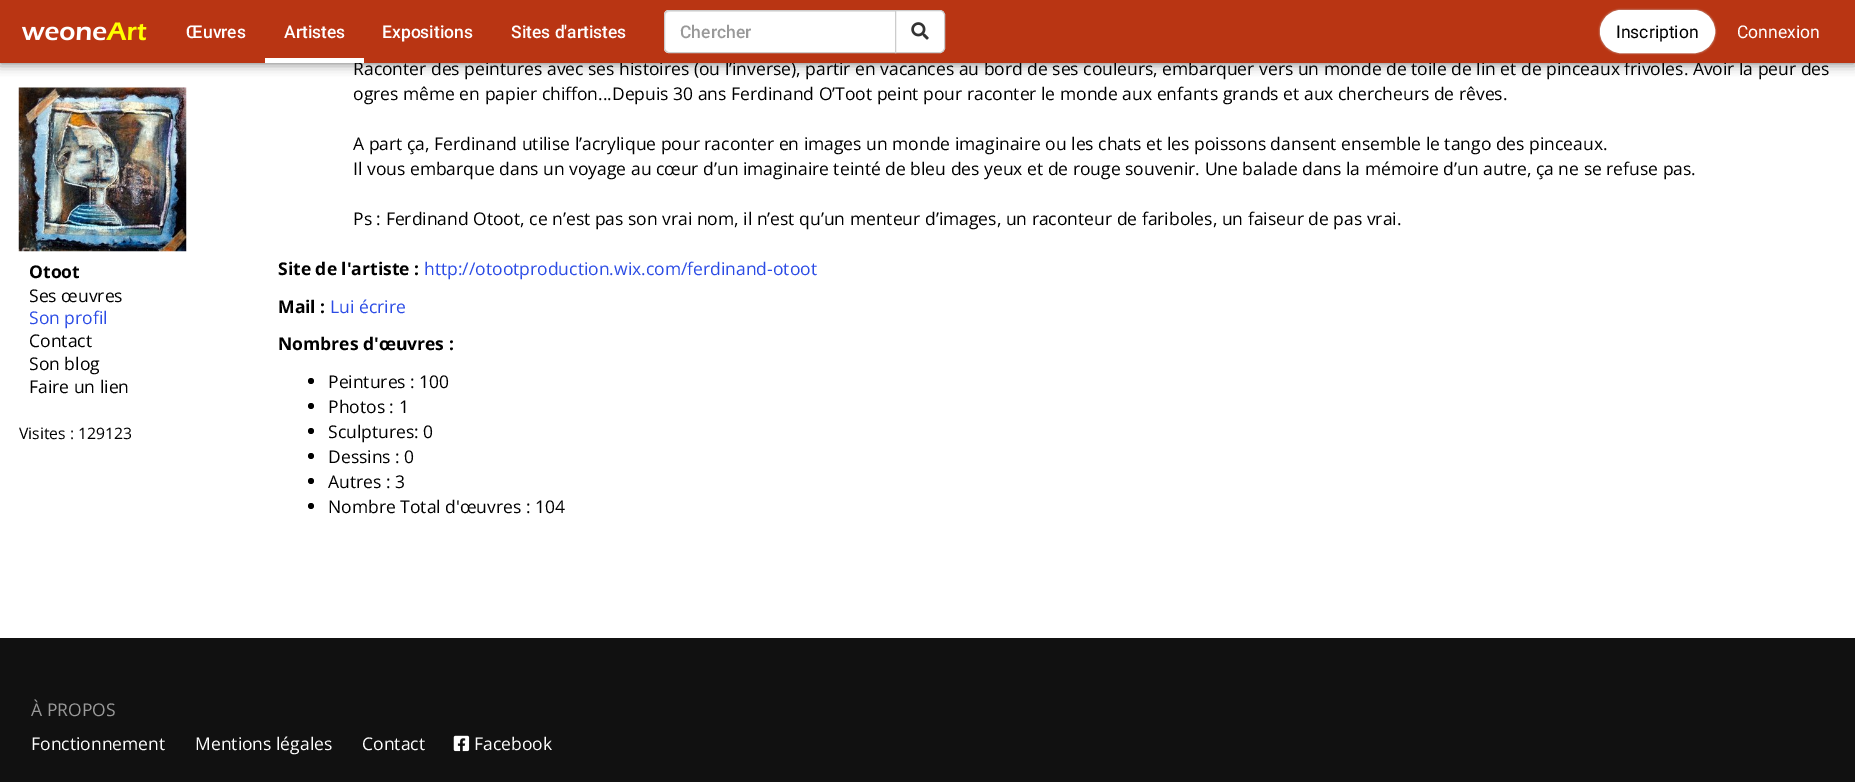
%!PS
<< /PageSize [1855 782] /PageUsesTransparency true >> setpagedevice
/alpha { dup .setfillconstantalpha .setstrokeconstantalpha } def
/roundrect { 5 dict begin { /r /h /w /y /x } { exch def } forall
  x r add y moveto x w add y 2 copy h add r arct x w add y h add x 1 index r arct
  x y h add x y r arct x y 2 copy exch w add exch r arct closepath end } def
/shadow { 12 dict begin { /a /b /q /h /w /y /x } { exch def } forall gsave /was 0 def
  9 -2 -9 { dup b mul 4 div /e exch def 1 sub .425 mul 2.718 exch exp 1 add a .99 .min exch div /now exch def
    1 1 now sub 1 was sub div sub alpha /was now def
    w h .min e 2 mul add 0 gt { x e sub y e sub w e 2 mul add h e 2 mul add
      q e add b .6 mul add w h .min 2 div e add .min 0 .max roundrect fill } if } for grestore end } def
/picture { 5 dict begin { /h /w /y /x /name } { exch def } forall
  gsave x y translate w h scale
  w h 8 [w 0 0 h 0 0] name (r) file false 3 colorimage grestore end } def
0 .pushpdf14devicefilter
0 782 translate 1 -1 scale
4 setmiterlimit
1 setgray
0 0 1855 782 rectfill
0.4 setgray
0 0 1855 63 0 6 1 shadow
/OpenSans-Regular [17.5 0 0 -17.5 0 0] selectfont
0 setgray
353 75 moveto (Raconter des peintures avec ses histoires \(ou l’inverse\), partir en vacances au bord de ses couleurs, embarquer vers un monde de toile de lin et de pinceaux frivoles. Avoir la peur des) show
0.725 0.208 0.075 setrgbcolor
0 0 1855 63 rectfill
(img1.rgb) 22 22 125 19 picture
/Roboto-Medium [17.5 0 0 -17.5 0 0] selectfont
1 setgray
186 38 moveto (Œuvres) show
284 38 moveto (Artistes) show
265 58 99 5 rectfill
382 38 moveto (Expositions) show
511 38 moveto (Sites d'artistes) show
newpath 669 10 moveto 896 10 lineto 896 53 lineto 669 53 lineto 666 53 664 51 664 48 curveto 664 15 lineto 664 12 666 10 669 10 curveto closepath fill
0.925 setgray
newpath 669 12 moveto 895 12 lineto 895 11 lineto 669 11 lineto 666 11 665 13 665 16 curveto 665 14 667 12 669 12 curveto closepath fill
0.8 setgray
newpath 669 10.5 moveto 895.5 10.5 lineto 895.5 52.5 lineto 669 52.5 lineto 666.5 52.5 664.5 50.5 664.5 48 curveto 664.5 15 lineto 664.5 12.5 666.5 10.5 669 10.5 curveto closepath stroke
0.6 setgray
680 38 moveto (Chercher) show
1 setgray
newpath 895.5 10.5 moveto 940 10.5 lineto 942.5 10.5 944.5 12.5 944.5 15 curveto 944.5 48 lineto 944.5 50.5 942.5 52.5 940 52.5 curveto 895.5 52.5 lineto closepath gsave fill grestore
0.8 setgray
stroke
(img2.rgb) 911 22 18 18 picture
1600 10 115 43 21.5 1 1 shadow
1 setgray
1600.5 10.5 114 42 21 roundrect gsave fill grestore
stroke
/Roboto-Regular [17.5 0 0 -17.5 0 0] selectfont
0 setgray
1616 38 moveto (Inscription) show
1 setgray
1737 38 moveto (Connexion) show
(img3.rgb) 18 87 169 165 picture
/OpenSans-Bold [17.5 0 0 -17.5 0 0] selectfont
0 setgray
29 278 moveto (Otoot) show
/OpenSans-Regular [17.5 0 0 -17.5 0 0] selectfont
29 302 moveto (Ses œuvres) show
0.173 0.298 0.898 setrgbcolor
29 324 moveto (Son profil) show
0 setgray
29 347 moveto (Contact) show
29 370 moveto (Son blog) show
29 393 moveto (Faire un lien) show
/OpenSans-Regular [15.75 0 0 -15.75 0 0] selectfont
19 439 moveto (Visites : 129123) show
/OpenSans-Regular [17.5 0 0 -17.5 0 0] selectfont
353 100 moveto (ogres même en papier chiffon...Depuis 30 ans Ferdinand O’Toot peint pour raconter le monde aux enfants grands et aux chercheurs de rêves.) show
353 150 moveto (A part ça, Ferdinand utilise l’acrylique pour raconter en images un monde imaginaire ou les chats et les poissons dansent ensemble le tango des pinceaux.) show
353 175 moveto (Il vous embarque dans un voyage au cœur d’un imaginaire teinté de bleu des yeux et de rouge souvenir. Une balade dans la mémoire d’un autre, ça ne se refuse pas.) show
353 225 moveto (Ps : Ferdinand Otoot, ce n’est pas son vrai nom, il n’est qu’un menteur d’images, un raconteur de fariboles, un faiseur de pas vrai.) show
/OpenSans-Bold [17.5 0 0 -17.5 0 0] selectfont
278 275 moveto (Site de l'artiste :) show
/OpenSans-Regular [17.5 0 0 -17.5 0 0] selectfont
0.173 0.298 0.898 setrgbcolor
424 275 moveto (http://otootproduction.wix.com/ferdinand-otoot) show
/OpenSans-Bold [17.5 0 0 -17.5 0 0] selectfont
0 setgray
278 313 moveto (Mail :) show
/OpenSans-Regular [17.5 0 0 -17.5 0 0] selectfont
0.173 0.298 0.898 setrgbcolor
330 313 moveto (Lui écrire) show
/OpenSans-Bold [17.5 0 0 -17.5 0 0] selectfont
0 setgray
278 350 moveto (Nombres d'œuvres :) show
newpath 311 381 3 0 360 arc closepath fill
/OpenSans-Regular [17.5 0 0 -17.5 0 0] selectfont
328 388 moveto (Peintures : 100) show
newpath 311 406 3 0 360 arc closepath fill
328 413 moveto (Photos : 1) show
newpath 311 431 3 0 360 arc closepath fill
328 438 moveto (Sculptures: 0) show
newpath 311 456 3 0 360 arc closepath fill
328 463 moveto (Dessins : 0) show
newpath 311 481 3 0 360 arc closepath fill
328 488 moveto (Autres : 3) show
newpath 311 506 3 0 360 arc closepath fill
328 513 moveto (Nombre Total d'œuvres : 104) show
0.067 setgray
0 638 1855 144 rectfill
0.6 setgray
31 716 moveto (À PROPOS) show
1 setgray
31 750 moveto (Fonctionnement) show
195 750 moveto (Mentions légales) show
362 750 moveto (Contact) show
(img4.rgb) 453 735 17 17 picture
474 750 moveto (Facebook) show
.poppdf14devicefilter showpage
